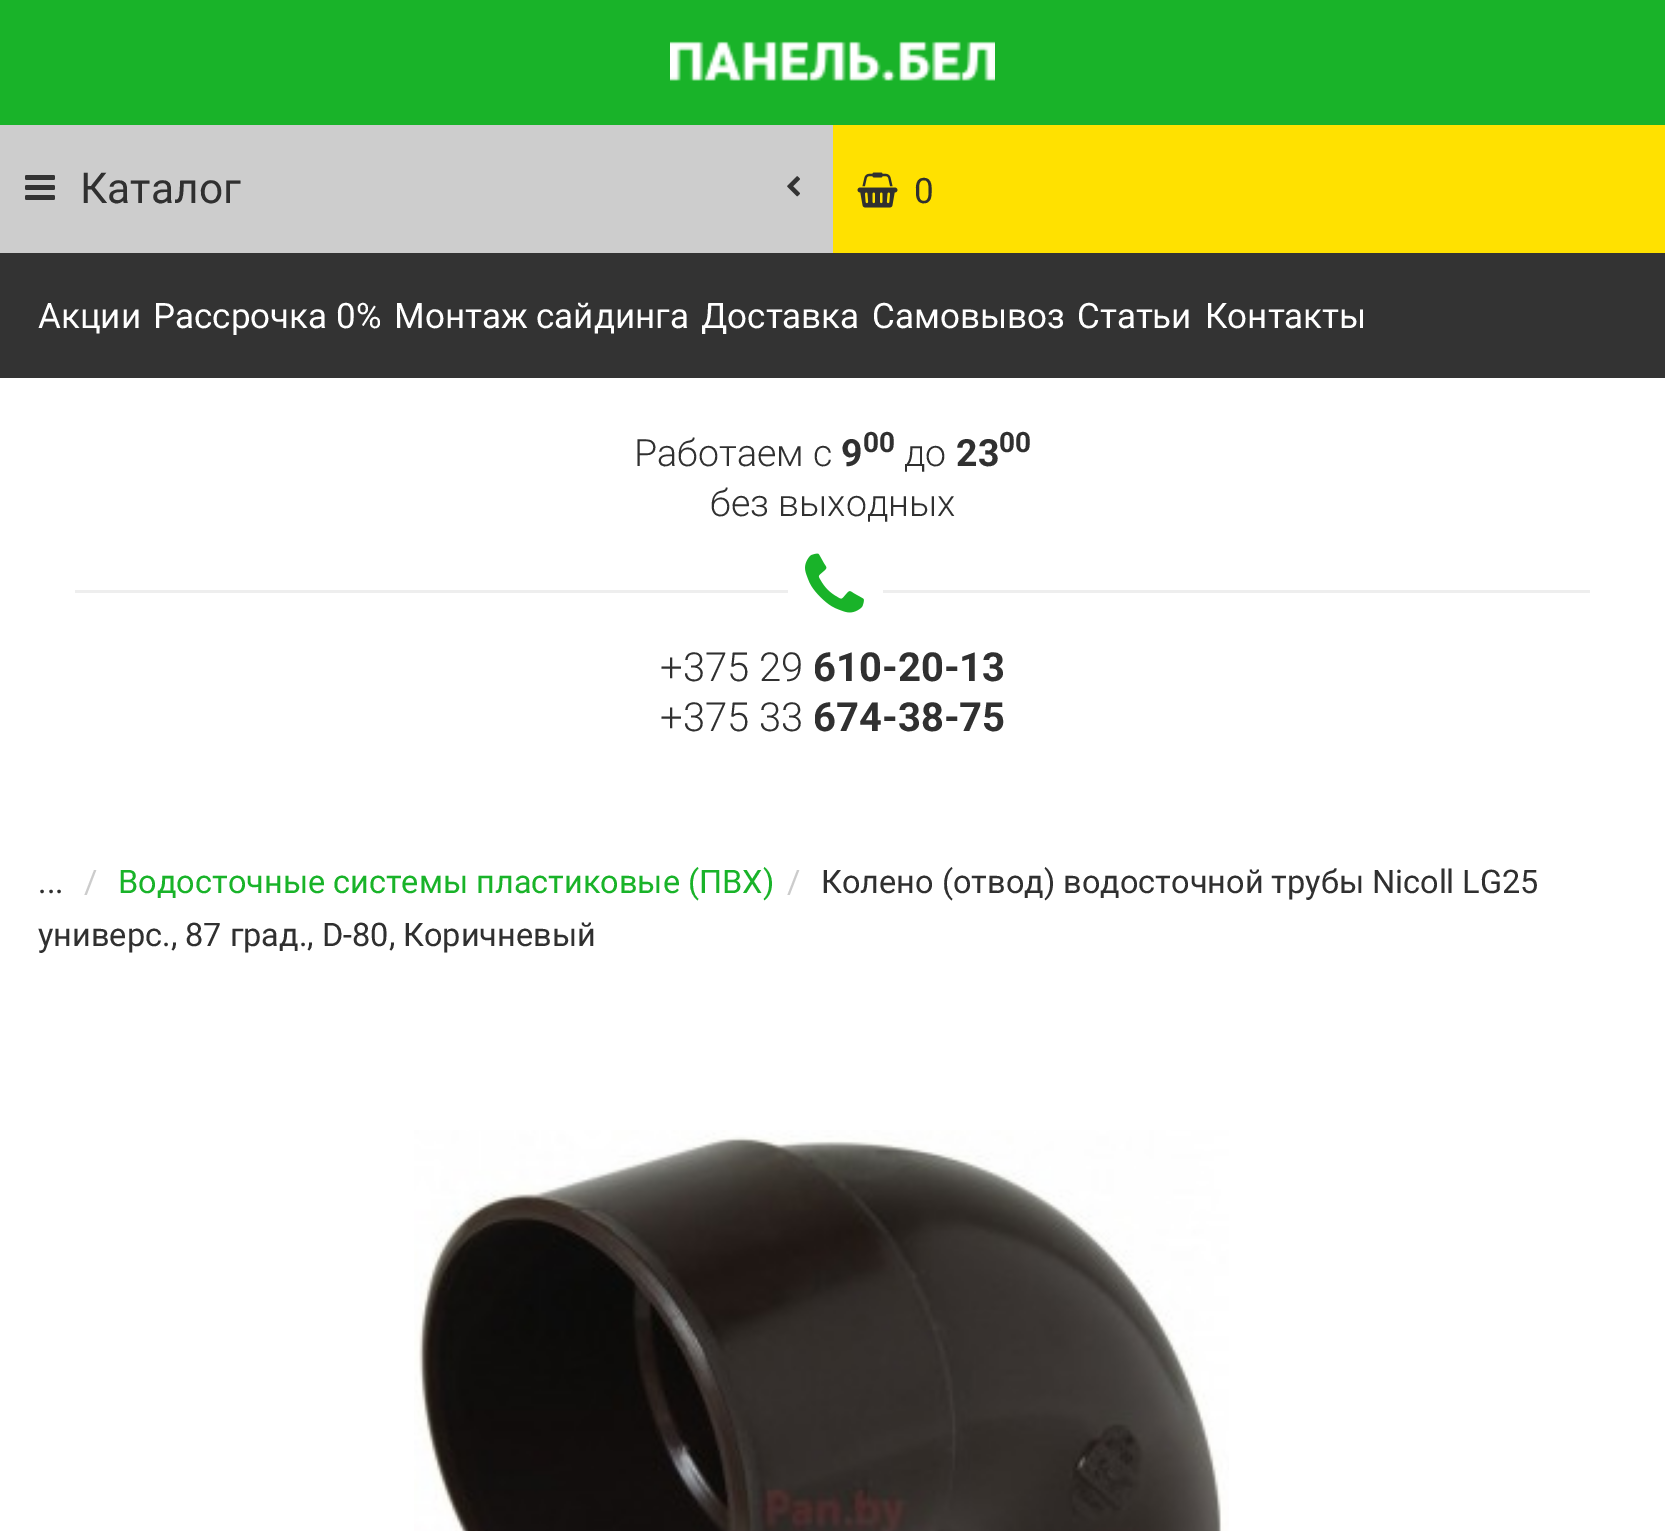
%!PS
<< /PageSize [1665 1531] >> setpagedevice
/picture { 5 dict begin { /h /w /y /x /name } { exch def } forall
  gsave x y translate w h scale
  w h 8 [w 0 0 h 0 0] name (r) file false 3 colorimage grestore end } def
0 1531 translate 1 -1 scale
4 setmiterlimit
1 setgray
0 0 1665 1531 rectfill
0.804 setgray
0 125 833 128 rectfill
0.098 0.702 0.161 setrgbcolor
0 0 1665 125 rectfill
(img1.rgb) 670 41 325 40 picture
(img2.rgb) 25 175 30 25 picture
/Roboto-Regular [42.5 0 0 -42.5 0 0] selectfont
0.188 setgray
80 203 moveto (Каталог) show
(img3.rgb) 787 176 13 21 picture
1 0.882 0 setrgbcolor
833 125 832 128 rectfill
(img4.rgb) 857 172 41 36 picture
/Roboto-Regular [35 0 0 -35 0 0] selectfont
0.188 setgray
914 203 moveto (0) show
0.2 setgray
0 253 1665 125 rectfill
1 setgray
38 328 moveto (Акции) show
153 328 moveto (Рассрочка 0%) show
394 328 moveto (Монтаж сайдинга) show
701 328 moveto (Доставка) show
872 328 moveto (Самовывоз) show
1077 328 moveto (Статьи) show
1205 328 moveto (Контакты) show
/Roboto-Light [37.5 0 0 -37.5 0 0] selectfont
0.188 setgray
634 466 moveto (Работаем с) show
/Roboto-Bold [37.5 0 0 -37.5 0 0] selectfont
841 466 moveto (9) show
/Roboto-Bold [28 0 0 -28 0 0] selectfont
863 452 moveto (00) show
/Roboto-Light [37.5 0 0 -37.5 0 0] selectfont
904 466 moveto (до) show
/Roboto-Bold [37.5 0 0 -37.5 0 0] selectfont
956 466 moveto (23) show
/Roboto-Bold [28 0 0 -28 0 0] selectfont
999 452 moveto (00) show
/Roboto-Light [37.5 0 0 -37.5 0 0] selectfont
710 516 moveto (без выходных) show
0.933 setgray
75 590 1515 3 rectfill
1 setgray
788 590 95 3 rectfill
(img5.rgb) 805 553 59 60 picture
/Roboto-Light [40 0 0 -40 0 0] selectfont
0.188 setgray
660 681 moveto (+375 29) show
/Roboto-Bold [40 0 0 -40 0 0] selectfont
813 681 moveto (610-20-13) show
/Roboto-Light [40 0 0 -40 0 0] selectfont
660 731 moveto (+375 33) show
/Roboto-Bold [40 0 0 -40 0 0] selectfont
813 731 moveto (674-38-75) show
/Roboto-Regular [32.5 0 0 -32.5 0 0] selectfont
38 893 moveto (...) show
0.8 setgray
84 893 moveto (/) show
0.098 0.702 0.161 setrgbcolor
118 893 moveto (Водосточные системы пластиковые \(ПВХ\)) show
0.8 setgray
787 893 moveto (/) show
0.188 setgray
821 893 moveto (Колено \(отвод\) водосточной трубы Nicoll LG25) show
38 946 moveto (универс., 87 град., D-80, Коричневый) show
(img6.rgb) 414 1130 815 401 picture
showpage
